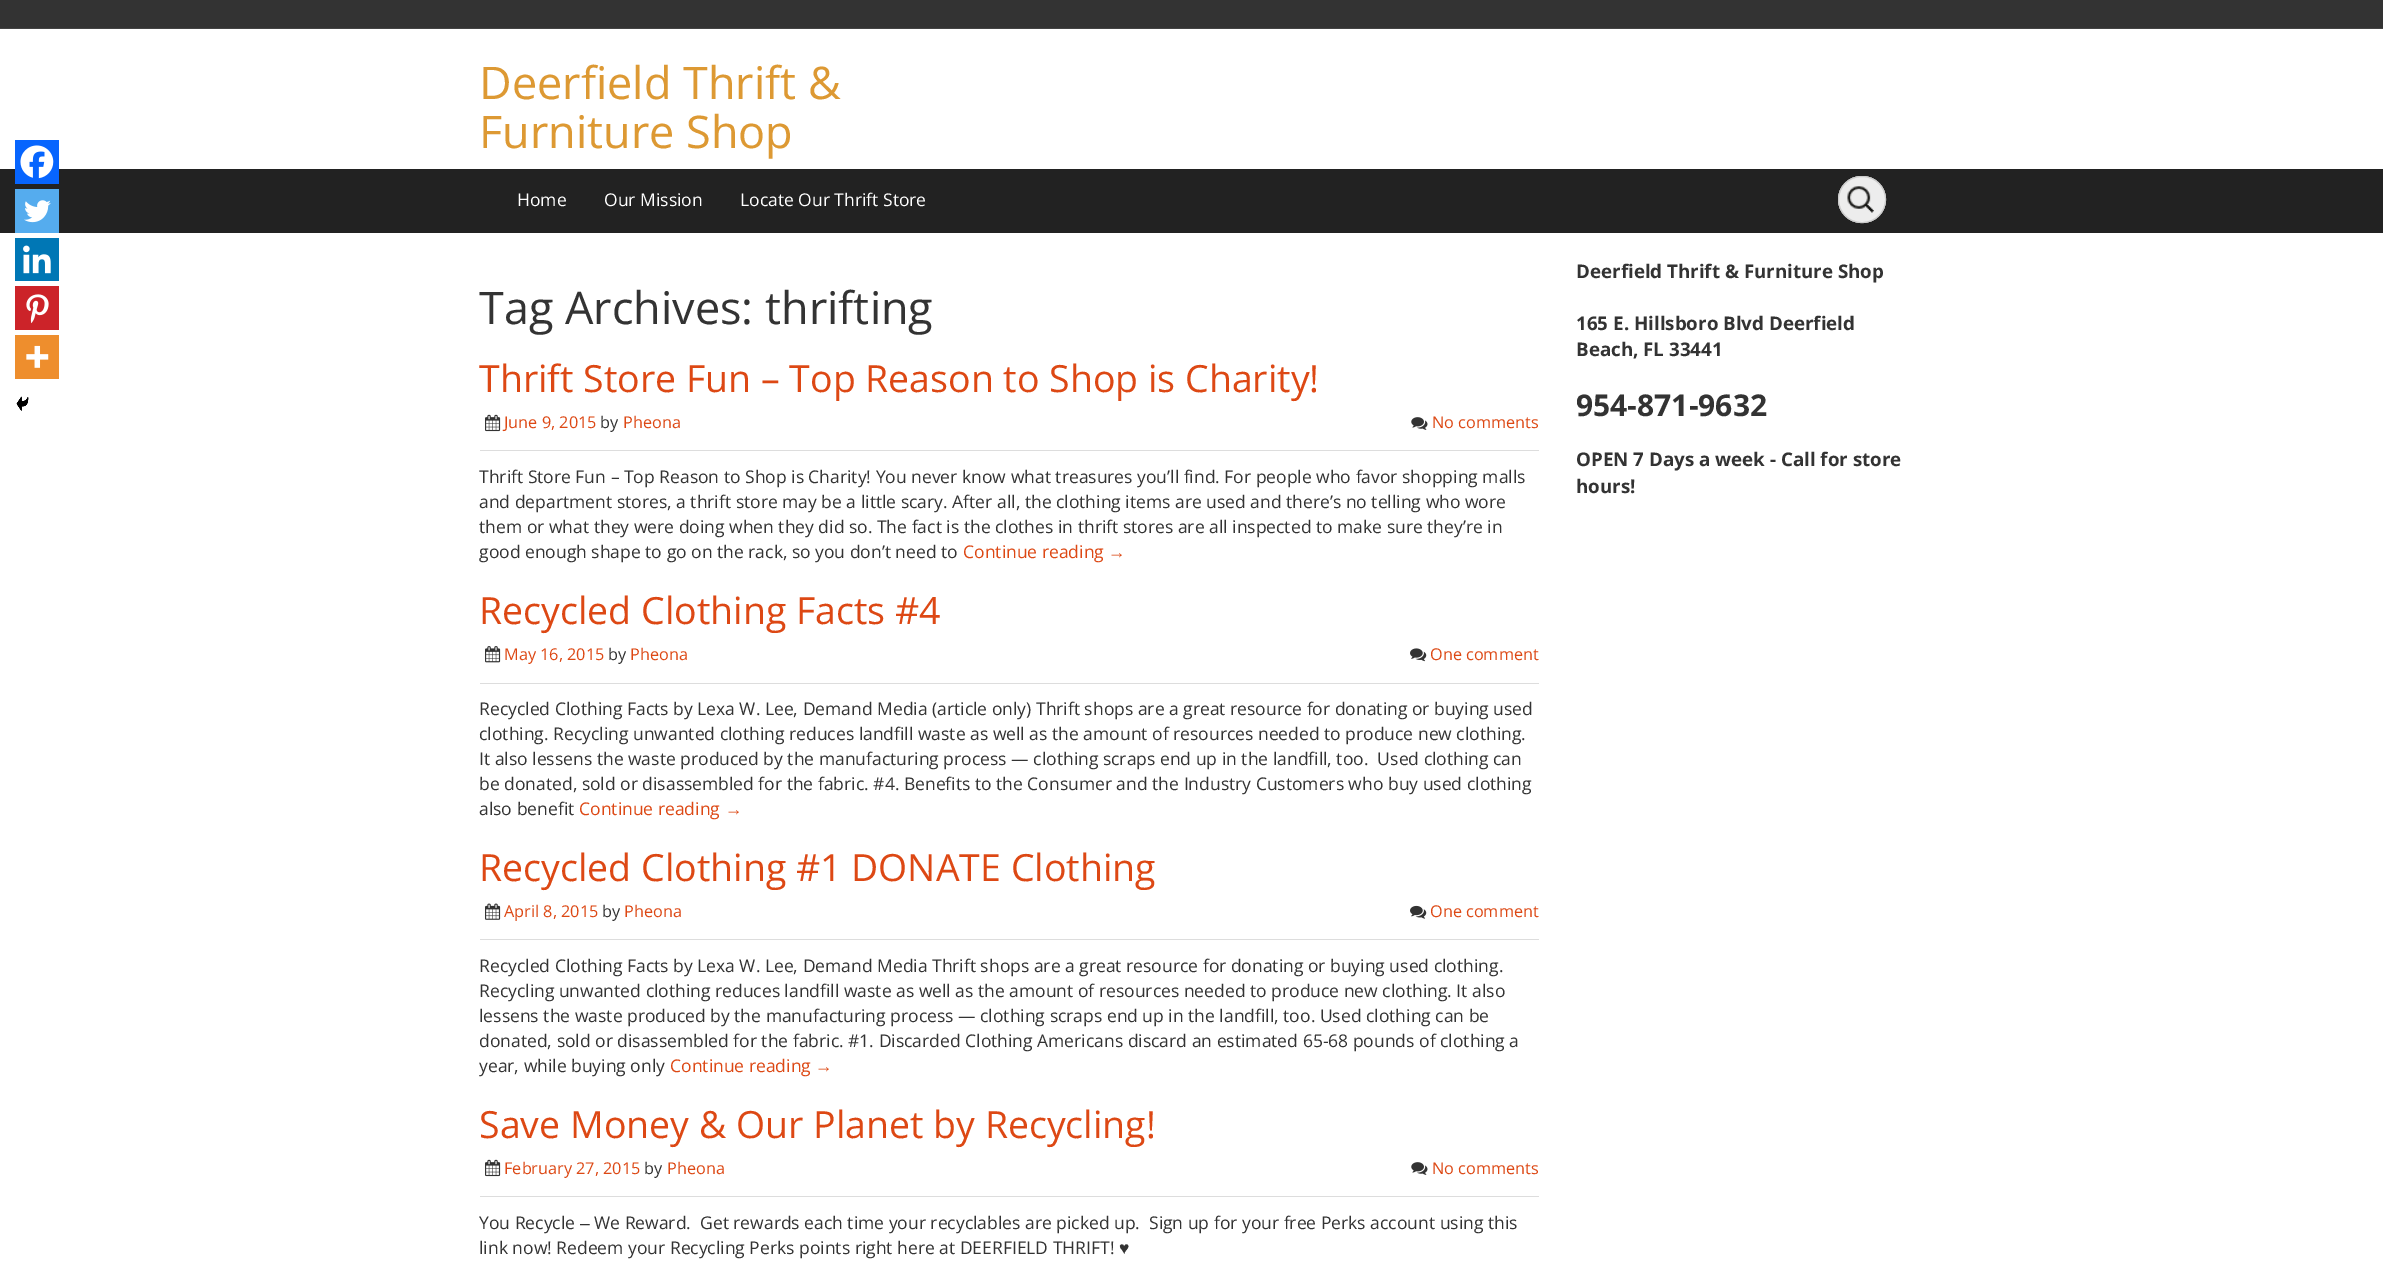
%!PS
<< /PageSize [2383 1274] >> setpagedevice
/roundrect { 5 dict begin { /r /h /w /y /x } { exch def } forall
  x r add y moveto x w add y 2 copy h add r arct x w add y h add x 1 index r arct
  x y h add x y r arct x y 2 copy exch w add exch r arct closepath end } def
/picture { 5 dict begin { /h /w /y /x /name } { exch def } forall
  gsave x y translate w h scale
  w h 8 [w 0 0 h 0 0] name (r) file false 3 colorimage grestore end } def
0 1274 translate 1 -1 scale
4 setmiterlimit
1 setgray
0 0 2383 1274 rectfill
0.2 setgray
0 0 2383 28 rectfill
0.267 setgray
0 28 2383 1 rectfill
/OpenSans-Regular [45 0 0 -45 0 0] selectfont
0.867 0.6 0.2 setrgbcolor
479 99 moveto (Deerfield Thrift &) show
479 148 moveto (Furniture Shop) show
0.133 setgray
0 169 2383 64 rectfill
/OpenSans-Regular [17.5 0 0 -17.5 0 0] selectfont
1 setgray
517 206 moveto (Home) show
604 206 moveto (Our Mission) show
740 206 moveto (Locate Our Thrift Store) show
0.929 setgray
1838 176 48 47 23.5 roundrect fill
(img1.rgb) 1847 186 27 27 picture
0.8 setgray
1838.5 176.5 47 46 23 roundrect stroke
/OpenSans-Regular [45 0 0 -45 0 0] selectfont
0.2 setgray
479 324 moveto (Tag Archives: thrifting) show
/OpenSans-Regular [37.5 0 0 -37.5 0 0] selectfont
0.867 0.282 0.078 setrgbcolor
479 392 moveto (Thrift Store Fun – Top Reason to Shop is Charity!) show
(img2.rgb) 485 414 16 18 picture
/OpenSans-Regular [16.25 0 0 -16.25 0 0] selectfont
504 428 moveto (June 9, 2015) show
0.2 setgray
600 428 moveto (by) show
0.867 0.282 0.078 setrgbcolor
623 428 moveto (Pheona) show
(img3.rgb) 1411 417 17 13 picture
1432 428 moveto (No comments) show
0.867 setgray
480 450 1059 1 rectfill
(img4.rgb) 16 396 13 15 picture
/OpenSans-Regular [17.5 0 0 -17.5 0 0] selectfont
0.2 setgray
479 483 moveto (Thrift Store Fun – Top Reason to Shop is Charity! You never know what treasures you’ll find. For people who favor shopping malls) show
479 508 moveto (and department stores, a thrift store may be a little scary. After all, the clothing items are used and there’s no telling who wore) show
479 533 moveto (them or what they were doing when they did so. The fact is the clothes in thrift stores are all inspected to make sure they’re in) show
479 558 moveto (good enough shape to go on the rack, so you don’t need to) show
0.867 0.282 0.078 setrgbcolor
963 558 moveto (Continue reading) show
/LiberationSans-Regular [17.5 0 0 -17.5 0 0] selectfont
1108 558 moveto (→) show
/OpenSans-Regular [37.5 0 0 -37.5 0 0] selectfont
479 624 moveto (Recycled Clothing Facts #4) show
(img5.rgb) 485 646 16 17 picture
/OpenSans-Regular [16.25 0 0 -16.25 0 0] selectfont
504 660 moveto (May 16, 2015) show
0.2 setgray
608 660 moveto (by) show
0.867 0.282 0.078 setrgbcolor
630 660 moveto (Pheona) show
(img6.rgb) 1410 648 17 14 picture
1430 660 moveto (One comment) show
0.867 setgray
480 683 1059 1 rectfill
(img7.rgb) 16 396 13 15 picture
/OpenSans-Regular [17.5 0 0 -17.5 0 0] selectfont
0.2 setgray
479 715 moveto (Recycled Clothing Facts by Lexa W. Lee, Demand Media \(article only\) Thrift shops are a great resource for donating or buying used) show
479 740 moveto (clothing. Recycling unwanted clothing reduces landfill waste as well as the amount of resources needed to produce new clothing.) show
479 765 moveto (It also lessens the waste produced by the manufacturing process — clothing scraps end up in the landfill, too.  Used clothing can) show
479 790 moveto (be donated, sold or disassembled for the fabric. #4. Benefits to the Consumer and the Industry Customers who buy used clothing) show
479 815 moveto (also benefit) show
0.867 0.282 0.078 setrgbcolor
579 815 moveto (Continue reading) show
/LiberationSans-Regular [17.5 0 0 -17.5 0 0] selectfont
725 815 moveto (→) show
/OpenSans-Regular [37.5 0 0 -37.5 0 0] selectfont
479 881 moveto (Recycled Clothing #1 DONATE Clothing) show
(img8.rgb) 485 903 16 17 picture
/OpenSans-Regular [16.25 0 0 -16.25 0 0] selectfont
504 917 moveto (April 8, 2015) show
0.2 setgray
602 917 moveto (by) show
0.867 0.282 0.078 setrgbcolor
624 917 moveto (Pheona) show
(img9.rgb) 1410 905 17 14 picture
1430 917 moveto (One comment) show
0.867 setgray
480 939 1059 1 rectfill
(img10.rgb) 16 396 13 15 picture
/OpenSans-Regular [17.5 0 0 -17.5 0 0] selectfont
0.2 setgray
479 972 moveto (Recycled Clothing Facts by Lexa W. Lee, Demand Media Thrift shops are a great resource for donating or buying used clothing.) show
479 997 moveto (Recycling unwanted clothing reduces landfill waste as well as the amount of resources needed to produce new clothing. It also) show
479 1022 moveto (lessens the waste produced by the manufacturing process — clothing scraps end up in the landfill, too. Used clothing can be) show
479 1047 moveto (donated, sold or disassembled for the fabric. #1. Discarded Clothing Americans discard an estimated 65-68 pounds of clothing a) show
479 1072 moveto (year, while buying only) show
0.867 0.282 0.078 setrgbcolor
670 1072 moveto (Continue reading) show
/LiberationSans-Regular [17.5 0 0 -17.5 0 0] selectfont
815 1072 moveto (→) show
/OpenSans-Regular [37.5 0 0 -37.5 0 0] selectfont
479 1138 moveto (Save Money & Our Planet by Recycling!) show
(img2.rgb) 485 1159 16 18 picture
/OpenSans-Regular [16.25 0 0 -16.25 0 0] selectfont
504 1174 moveto (February 27, 2015) show
0.2 setgray
644 1174 moveto (by) show
0.867 0.282 0.078 setrgbcolor
667 1174 moveto (Pheona) show
(img3.rgb) 1411 1162 17 13 picture
1432 1174 moveto (No comments) show
0.867 setgray
480 1196 1059 1 rectfill
0.027 0.396 0.996 setrgbcolor
15 140 44 44 rectfill
(img11.rgb) 20 145 34 34 picture
0.333 0.675 0.933 setrgbcolor
15 189 44 44 rectfill
(img12.rgb) 24 200 27 23 picture
0 0.467 0.71 setrgbcolor
15 238 44 43 rectfill
(img13.rgb) 23 245 28 29 picture
0.8 0.137 0.161 setrgbcolor
15 286 44 44 rectfill
(img14.rgb) 26 294 23 30 picture
0.933 0.557 0.176 setrgbcolor
15 335 44 44 rectfill
(img15.rgb) 26 345 23 23 picture
(img16.rgb) 16 396 13 15 picture
/OpenSans-Regular [17.5 0 0 -17.5 0 0] selectfont
0.2 setgray
479 1229 moveto (You Recycle) show
/LiberationSans-Regular [17.5 0 0 -17.5 0 0] selectfont
580 1229 moveto (–) show
/OpenSans-Regular [17.5 0 0 -17.5 0 0] selectfont
594 1229 moveto (We Reward.  Get rewards each time your recyclables are picked up.  Sign up for your free Perks account using this) show
479 1254 moveto (link now! Redeem your Recycling Perks points right here at DEERFIELD THRIFT!) show
/LiberationSans-Regular [17.5 0 0 -17.5 0 0] selectfont
1119 1254 moveto (♥) show
/OpenSans-Bold [18.75 0 0 -18.75 0 0] selectfont
1576 278 moveto (Deerfield Thrift & Furniture Shop) show
1576 330 moveto (165 E. Hillsboro Blvd Deerfield) show
1576 356 moveto (Beach, FL 33441) show
/OpenSans-Bold [30 0 0 -30 0 0] selectfont
1576 416 moveto (954-871-9632) show
/OpenSans-Bold [18.75 0 0 -18.75 0 0] selectfont
1576 466 moveto (OPEN 7 Days a week - Call for store) show
1576 493 moveto (hours!) show
showpage
